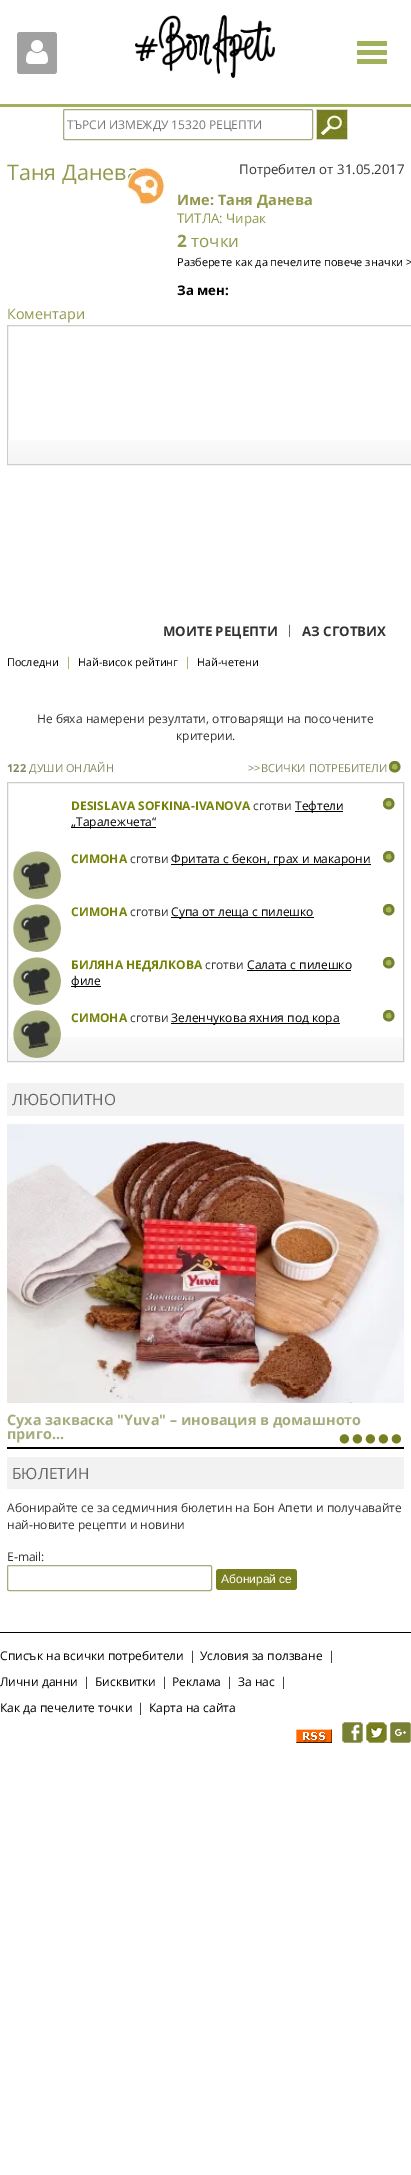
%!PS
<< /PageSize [411 2175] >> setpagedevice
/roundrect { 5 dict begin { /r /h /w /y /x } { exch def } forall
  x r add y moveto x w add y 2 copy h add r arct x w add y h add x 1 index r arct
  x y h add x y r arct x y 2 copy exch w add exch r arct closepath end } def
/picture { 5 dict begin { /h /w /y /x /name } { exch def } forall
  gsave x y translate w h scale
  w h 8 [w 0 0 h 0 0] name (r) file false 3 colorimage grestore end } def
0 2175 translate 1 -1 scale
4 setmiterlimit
1 setgray
0 0 411 2175 rectfill
0.631 setgray
17 32 40 42 3 roundrect fill
(img1.rgb) 26 40 22 24 picture
(img2.rgb) 135 15 140 63 picture
0.624 0.698 0.353 setrgbcolor
357 41 30 5 1 roundrect fill
357 50 30 5 1 roundrect fill
357 59 30 5 1 roundrect fill
0 104 411 3 rectfill
0.647 0.671 0.482 setrgbcolor
63.5 109.5 249 30 1.5 roundrect stroke
/OpenSans-Regular [12 0 0 -12 0 0] selectfont
0.459 setgray
67 129 moveto (ТЪРСИ ИЗМЕЖДУ 15320 РЕЦЕПТИ) show
(img3.rgb) 316 109 32 31 picture
/OpenSans-Regular [21.5 0 0 -21.5 0 0] selectfont
0.573 0.6 0.298 setrgbcolor
7 180 moveto (Таня Данев) show
/OpenSans-Regular [13.25 0 0 -13.25 0 0] selectfont
0.2 setgray
239 174 moveto (Потребител от 31.05.2017) show
(img4.rgb) 127 167 38 38 picture
/OpenSans-Bold [14.5 0 0 -14.5 0 0] selectfont
0.573 0.6 0.298 setrgbcolor
177 205 moveto (Име: Таня Данева) show
/OpenSans-Regular [13.25 0 0 -13.25 0 0] selectfont
177 223 moveto (ТИТЛА: Чирак) show
/OpenSans-Bold [17 0 0 -17 0 0] selectfont
177 247 moveto (2) show
/OpenSans-Regular [17 0 0 -17 0 0] selectfont
191 247 moveto (точки) show
/OpenSans-Regular [11 0 0 -11 0 0] selectfont
0 setgray
177 266 moveto (Разберете как да печелите повече значки >) show
/OpenSans-Bold [13.25 0 0 -13.25 0 0] selectfont
177 295 moveto (За мен:) show
/OpenSans-Regular [14.4 0 0 -14.4 0 0] selectfont
0.573 0.6 0.298 setrgbcolor
7 319 moveto (Коментари) show
0.8 setgray
7.5 325.5 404 139 rectstroke
(img5.rgb) 8 440 403 24 picture
/OpenSans-Bold [13.25 0 0 -13.25 0 0] selectfont
0.2 setgray
163 636 moveto (МОИТЕ РЕЦЕПТИ) show
/OpenSans-Regular [12 0 0 -12 0 0] selectfont
286 634 moveto (|) show
/OpenSans-Bold [13.25 0 0 -13.25 0 0] selectfont
302 636 moveto (АЗ СГОТВИХ) show
/OpenSans-Regular [10.75 0 0 -10.75 0 0] selectfont
0 setgray
7 666 moveto (Последни) show
/OpenSans-Regular [12 0 0 -12 0 0] selectfont
0.573 0.6 0.298 setrgbcolor
65 666 moveto (|) show
/OpenSans-Regular [10.75 0 0 -10.75 0 0] selectfont
0 setgray
78 666 moveto (Най-висок рейтинг) show
/OpenSans-Regular [12 0 0 -12 0 0] selectfont
0.573 0.6 0.298 setrgbcolor
184 666 moveto (|) show
/OpenSans-Regular [10.75 0 0 -10.75 0 0] selectfont
0 setgray
197 666 moveto (Най-четени) show
/OpenSans-Regular [12 0 0 -12 0 0] selectfont
0.2 setgray
37 723 moveto (Не бяха намерени резултати, отговарящи на посочените) show
176 740 moveto (критерии.) show
/OpenSans-Bold [11 0 0 -11 0 0] selectfont
0.514 0.541 0.38 setrgbcolor
7 772 moveto (122) show
/OpenSans-Regular [11 0 0 -11 0 0] selectfont
29 772 moveto (ДУШИ ОНЛАЙН) show
248 772 moveto (>>ВСИЧКИ ПОТРЕБИТЕЛИ) show
(img6.rgb) 389 761 12 12 picture
0.8 setgray
7.5 782.5 396 279 rectstroke
/OpenSans-Bold [12 0 0 -12 0 0] selectfont
0.463 0.506 0.027 setrgbcolor
71 810 moveto (DESISLAVA SOFKINA-IVANOVA) show
/OpenSans-Regular [12 0 0 -12 0 0] selectfont
0.2 setgray
253 810 moveto (сготви) show
0 setgray
295 811 48 1 rectfill
295 810 moveto (Тефтели) show
71 827 85 1 rectfill
71 826 moveto („Таралежчета“) show
(img6.rgb) 383 798 12 12 picture
(img7.rgb) 13 851 48 48 picture
/OpenSans-Bold [12 0 0 -12 0 0] selectfont
0.463 0.506 0.027 setrgbcolor
71 863 moveto (СИМОНА) show
/OpenSans-Regular [12 0 0 -12 0 0] selectfont
0.2 setgray
130 863 moveto (сготви) show
0 setgray
171 864 200 1 rectfill
171 863 moveto (Фритата с бекон, грах и макарони) show
(img6.rgb) 383 851 12 12 picture
(img7.rgb) 13 904 48 48 picture
/OpenSans-Bold [12 0 0 -12 0 0] selectfont
0.463 0.506 0.027 setrgbcolor
71 916 moveto (СИМОНА) show
/OpenSans-Regular [12 0 0 -12 0 0] selectfont
0.2 setgray
130 916 moveto (сготви) show
0 setgray
171 917 143 1 rectfill
171 916 moveto (Супа от леща с пилешко) show
(img6.rgb) 383 904 12 12 picture
(img7.rgb) 13 957 48 48 picture
/OpenSans-Bold [12 0 0 -12 0 0] selectfont
0.463 0.506 0.027 setrgbcolor
71 969 moveto (БИЛЯНА НЕДЯЛКОВА) show
/OpenSans-Regular [12 0 0 -12 0 0] selectfont
0.2 setgray
205 969 moveto (сготви) show
0 setgray
247 969 moveto (Салата с пилешко) show
247 970 104 1 rectfill
71 986 30 1 rectfill
71 985 moveto (филе) show
(img6.rgb) 383 957 12 12 picture
(img8.rgb) 13 1010 48 48 picture
/OpenSans-Bold [12 0 0 -12 0 0] selectfont
0.463 0.506 0.027 setrgbcolor
71 1022 moveto (СИМОНА) show
/OpenSans-Regular [12 0 0 -12 0 0] selectfont
0.2 setgray
130 1022 moveto (сготви) show
0 setgray
171 1023 169 1 rectfill
171 1022 moveto (Зеленчукова яхния под кора) show
(img6.rgb) 383 1010 12 12 picture
(img9.rgb) 8 1037 395 24 picture
0.949 setgray
7 1083 397 33 rectfill
/OpenSans-Regular [15.5 0 0 -15.5 0 0] selectfont
0.4 setgray
12 1105 moveto (ЛЮБОПИТНО) show
(img10.rgb) 7 1124 397 279 picture
0 setgray
7 1447 397 2 rectfill
/OpenSans-Bold [14.4 0 0 -14.4 0 0] selectfont
0.647 0.671 0.482 setrgbcolor
7 1425 moveto (Суха закваска "Yuva" – иновация в домашното) show
7 1439 moveto (приго...) show
(img11.rgb) 339 1434 10 10 picture
(img11.rgb) 352 1434 10 10 picture
(img11.rgb) 365 1434 10 10 picture
(img11.rgb) 378 1434 10 10 picture
(img11.rgb) 391 1434 10 10 picture
0.949 setgray
7 1457 397 32 rectfill
/OpenSans-Regular [15.5 0 0 -15.5 0 0] selectfont
0.4 setgray
12 1479 moveto (БЮЛЕТИН) show
/OpenSans-Regular [12 0 0 -12 0 0] selectfont
0.2 setgray
7 1512 moveto (Абонирайте се за седмичния бюлетин на Бон Апети и получавайте) show
7 1529 moveto (най-новите рецепти и новини) show
7 1561 moveto (E-mail:) show
0.647 0.671 0.482 setrgbcolor
7.5 1565.5 204 25 1.5 roundrect stroke
0.471 0.498 0.125 setrgbcolor
216 1569 81 21 3 roundrect fill
/LiberationSans-Regular [12 0 0 -12 0 0] selectfont
1 setgray
221 1583 moveto (Абонирай се) show
0 setgray
0 1632 411 1 rectfill
/OpenSans-Regular [12 0 0 -12 0 0] selectfont
0 1660 moveto (Списък на всички потребители) show
189 1660 moveto (|) show
200 1660 moveto (Условия за ползване) show
328 1660 moveto (|) show
0 1686 moveto (Лични данни) show
83 1686 moveto (|) show
95 1686 moveto (Бисквитки) show
161 1686 moveto (|) show
172 1686 moveto (Реклама) show
226 1686 moveto (|) show
238 1686 moveto (За нас) show
280 1686 moveto (|) show
0 1712 moveto (Как да печелите точки) show
137 1712 moveto (|) show
149 1712 moveto (Карта на сайта) show
(img12.rgb) 296 1729 36 14 picture
(img13.rgb) 342 1722 21 21 picture
(img14.rgb) 366 1722 21 21 picture
(img15.rgb) 390 1722 21 21 picture
showpage
